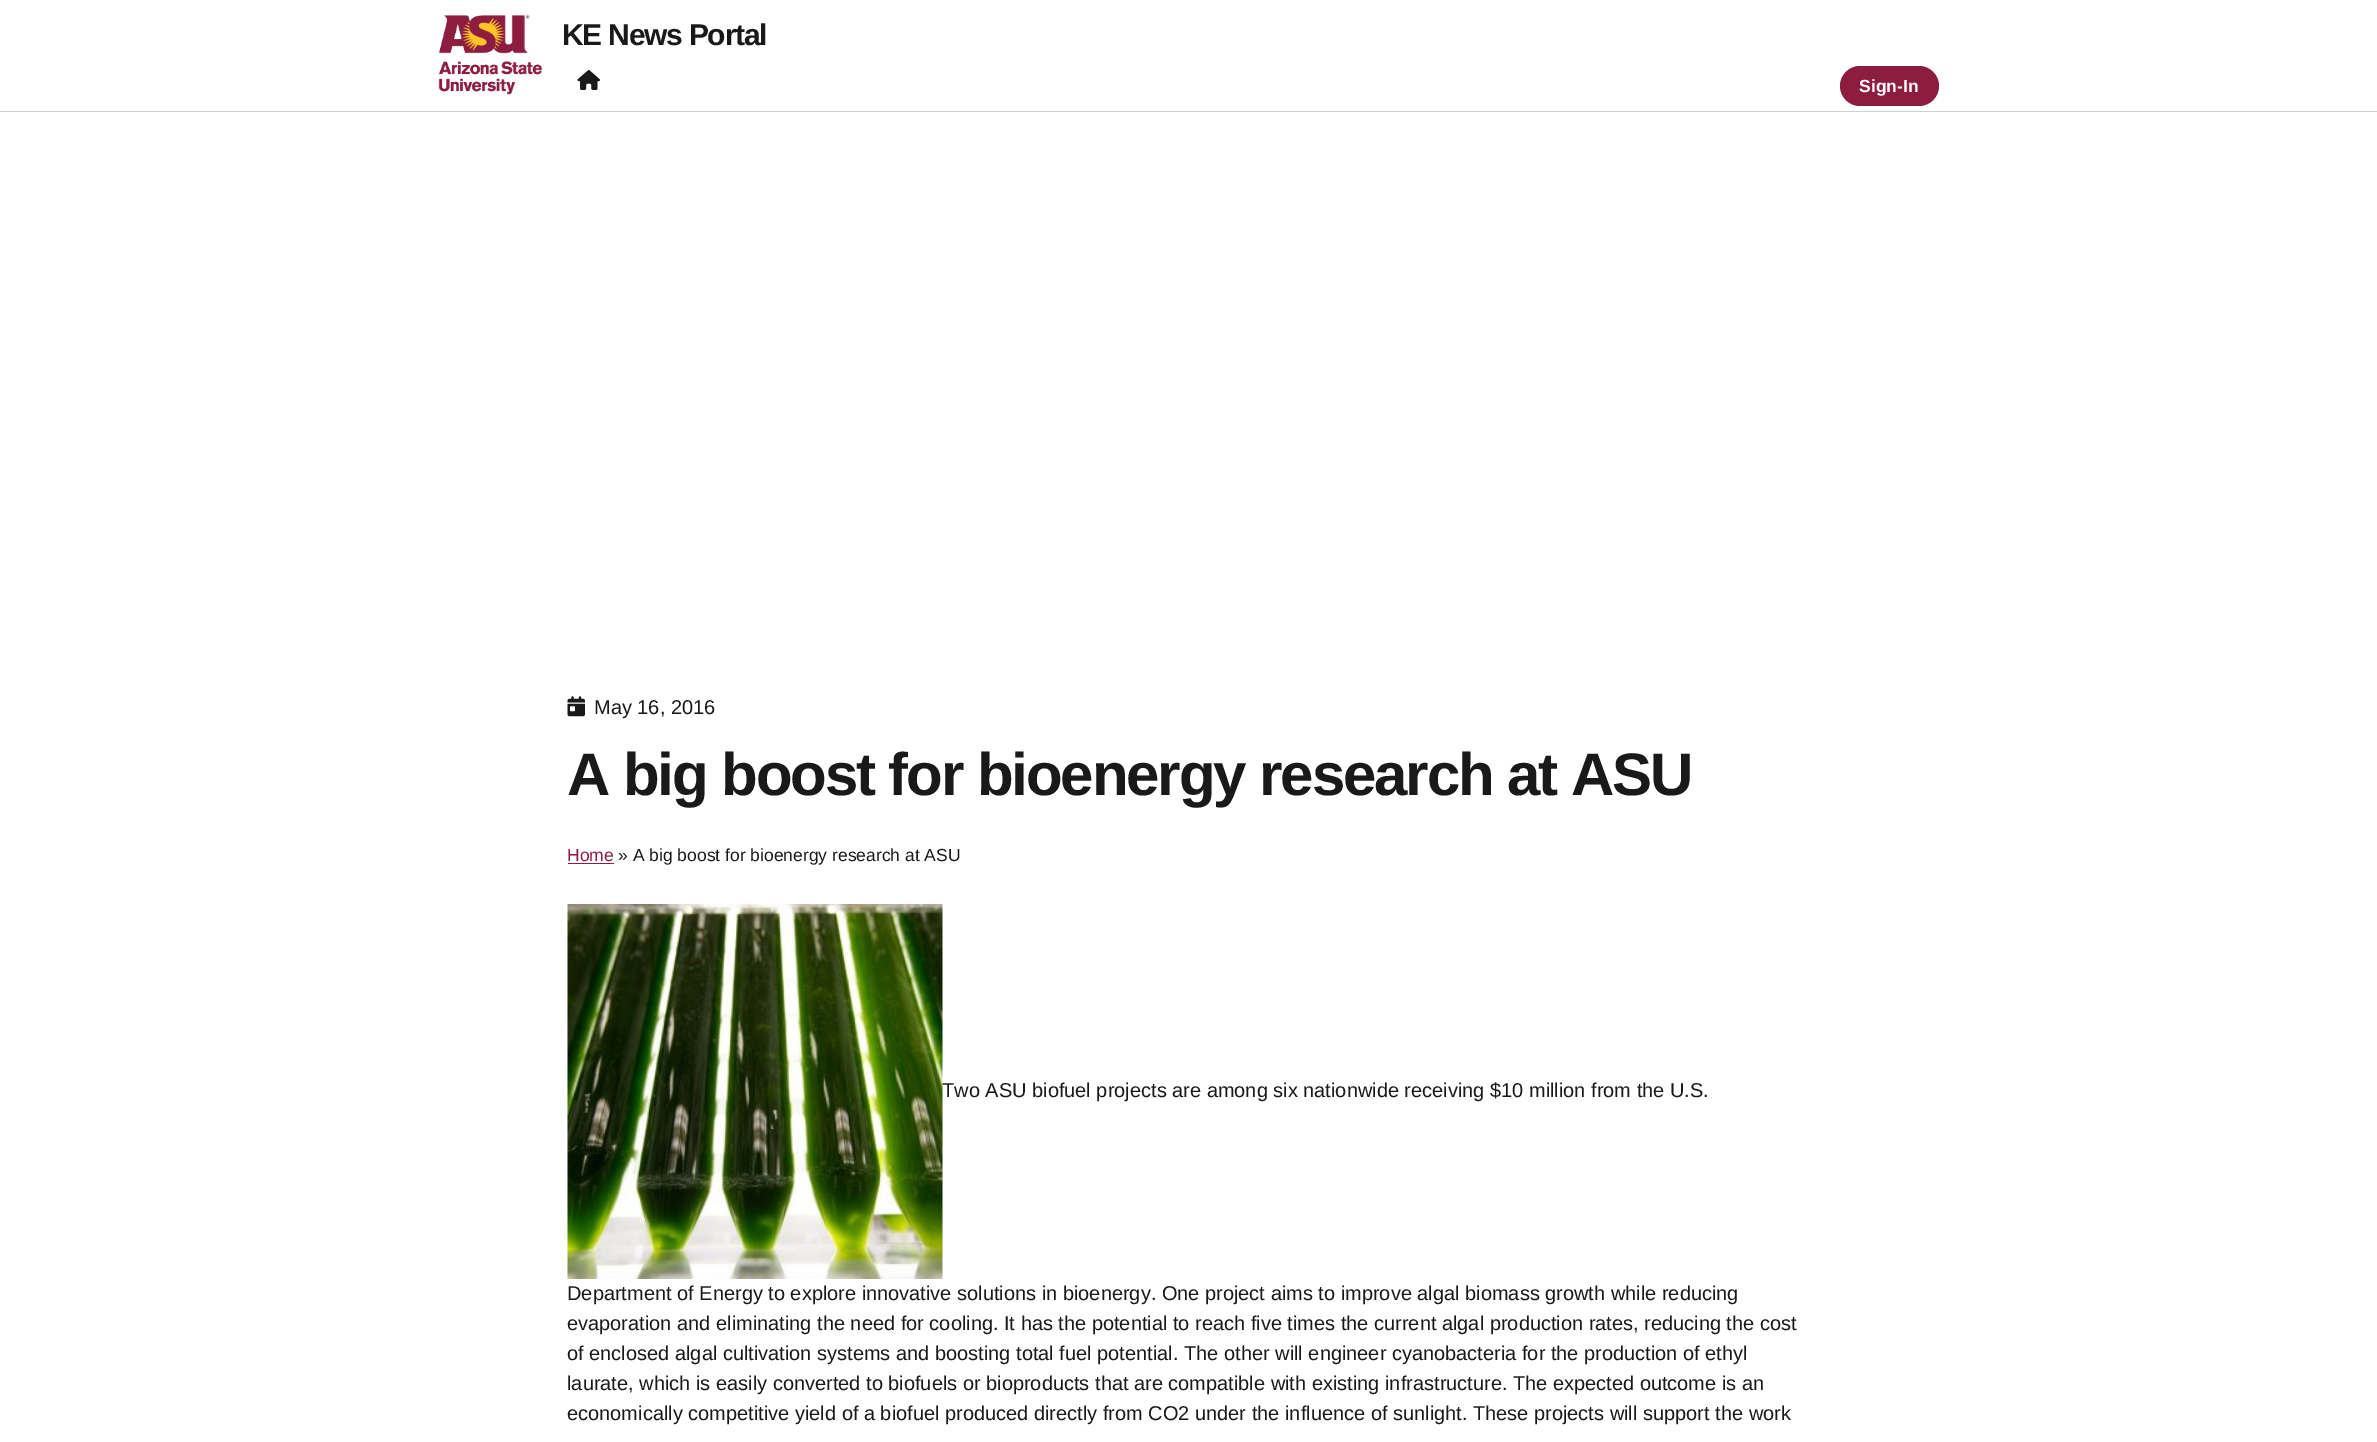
%!PS
<< /PageSize [2377 1442] >> setpagedevice
/roundrect { 5 dict begin { /r /h /w /y /x } { exch def } forall
  x r add y moveto x w add y 2 copy h add r arct x w add y h add x 1 index r arct
  x y h add x y r arct x y 2 copy exch w add exch r arct closepath end } def
/picture { 5 dict begin { /h /w /y /x /name } { exch def } forall
  gsave x y translate w h scale
  w h 8 [w 0 0 h 0 0] name (r) file false 3 colorimage grestore end } def
0 1442 translate 1 -1 scale
4 setmiterlimit
1 setgray
0 0 2377 1442 rectfill
0.816 setgray
0 111 2377 1 rectfill
(img1.rgb) 438 15 105 80 picture
/LiberationSans-Bold [30 0 0 -30 0 0] selectfont
0.098 setgray
562 45 moveto -1.25 0 (KE News Portal) ashow
(img2.rgb) 577 70 23 20 picture
0.549 0.114 0.251 setrgbcolor
1840 66 99 40 20 roundrect fill
/LiberationSans-Bold [17.5 0 0 -17.5 0 0] selectfont
1 setgray
1859 92 moveto (Sign-In) show
(img3.rgb) 567 696 18 21 picture
/LiberationSans-Regular [20 0 0 -20 0 0] selectfont
0.098 setgray
594 714 moveto (May 16, 2016) show
/LiberationSans-Bold [60 0 0 -60 0 0] selectfont
567 795 moveto -2.1 0 (A big boost for bioenergy research at ASU) ashow
/LiberationSans-Regular [17.5 0 0 -17.5 0 0] selectfont
0.549 0.114 0.251 setrgbcolor
567 861 moveto (Home) show
568 863 46 1 rectfill
0.098 setgray
618 861 moveto (» A big boost for bioenergy research at ASU) show
(img4.rgb) 567 904 376 375 picture
/LiberationSans-Regular [20 0 0 -20 0 0] selectfont
942 1097 moveto (Two ASU biofuel projects are among six nationwide receiving $10 million from the U.S.) show
567 1300 moveto (Department of Energy to explore innovative solutions in bioenergy. One project aims to improve algal biomass growth while reducing) show
567 1330 moveto (evaporation and eliminating the need for cooling. It has the potential to reach five times the current algal production rates, reducing the cost) show
567 1360 moveto (of enclosed algal cultivation systems and boosting total fuel potential. The other will engineer cyanobacteria for the production of ethyl) show
567 1390 moveto (laurate, which is easily converted to biofuels or bioproducts that are compatible with existing infrastructure. The expected outcome is an) show
567 1420 moveto (economically competitive yield of a biofuel produced directly from CO2 under the influence of sunlight. These projects will support the work) show
showpage
